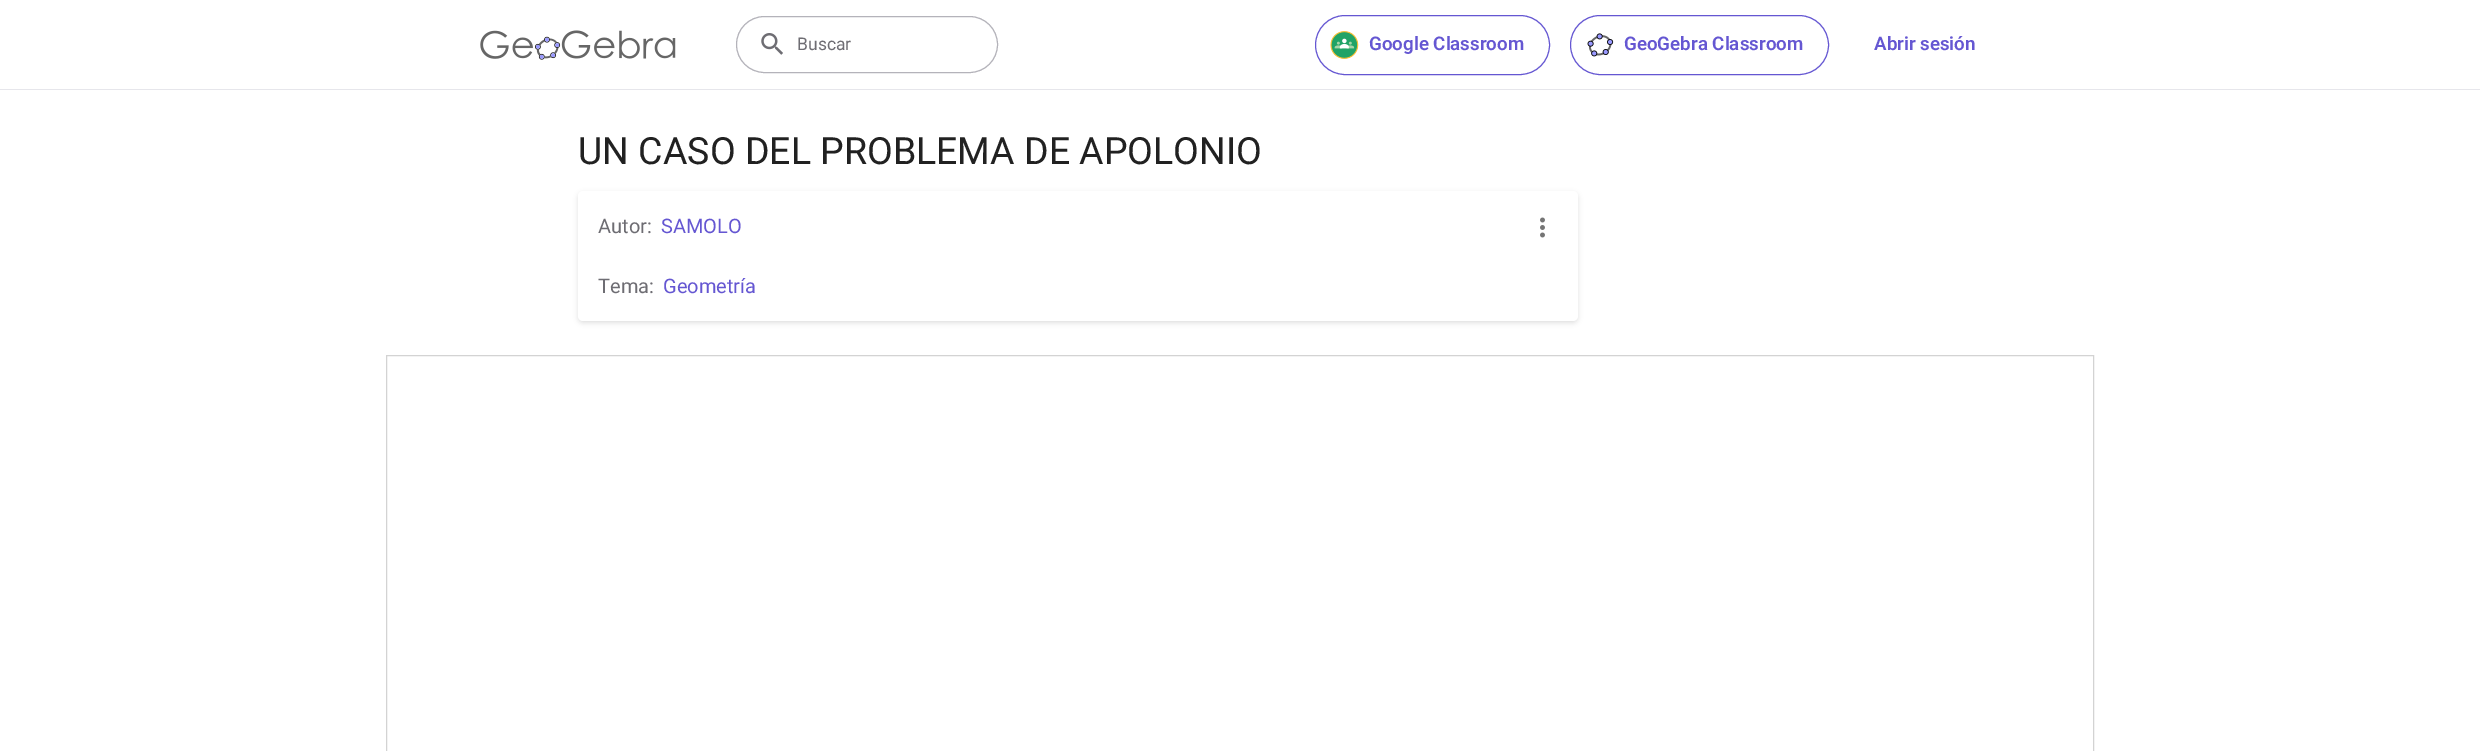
%!PS
<< /PageSize [2480 751] /PageUsesTransparency true >> setpagedevice
/alpha { dup .setfillconstantalpha .setstrokeconstantalpha } def
/roundrect { 5 dict begin { /r /h /w /y /x } { exch def } forall
  x r add y moveto x w add y 2 copy h add r arct x w add y h add x 1 index r arct
  x y h add x y r arct x y 2 copy exch w add exch r arct closepath end } def
/shadow { 12 dict begin { /a /b /q /h /w /y /x } { exch def } forall gsave /was 0 def
  9 -2 -9 { dup b mul 4 div /e exch def 1 sub .425 mul 2.718 exch exp 1 add a .99 .min exch div /now exch def
    1 1 now sub 1 was sub div sub alpha /was now def
    w h .min e 2 mul add 0 gt { x e sub y e sub w e 2 mul add h e 2 mul add
      q e add b .6 mul add w h .min 2 div e add .min 0 .max roundrect fill } if } for grestore end } def
/picture { 5 dict begin { /h /w /y /x /name } { exch def } forall
  gsave x y translate w h scale
  w h 8 [w 0 0 h 0 0] name (r) file false 3 colorimage grestore end } def
0 .pushpdf14devicefilter
0 751 translate 1 -1 scale
4 setmiterlimit
1 setgray
0 0 2480 751 rectfill
0.902 0.902 0.922 setrgbcolor
0 89 2480 1 rectfill
(img1.rgb) 480 30 196 30 picture
0.706 0.702 0.729 setrgbcolor
736.5 16.5 261 56 28 roundrect stroke
(img2.rgb) 761 33 22 22 picture
/Roboto-Regular [17.5 0 0 -17.5 0 0] selectfont
0.431 0.427 0.451 setrgbcolor
797 50 moveto (Buscar) show
0.396 0.341 0.824 setrgbcolor
1315.5 15.5 234 59 29.5 roundrect stroke
(img3.rgb) 1330 31 29 28 picture
/Roboto-SemiBold [18.75 0 0 -18.75 0 0] selectfont
1369 50 moveto (Google Classroom) show
1570.5 15.5 258 59 29.5 roundrect stroke
(img4.rgb) 1587 33 27 24 picture
1624 50 moveto (GeoGebra Classroom) show
1874 50 moveto (Abrir sesión) show
/Roboto-Regular [37.5 0 0 -37.5 0 0] selectfont
0.129 setgray
578 164 moveto (UN CASO DEL PROBLEMA DE APOLONIO) show
0.11 0.11 0.122 setrgbcolor
578 193 1000 130 5 2.5 0.14 shadow
1 setgray
578 191 1000 130 5 roundrect fill
/Roboto-Regular [20 0 0 -20 0 0] selectfont
0.431 0.427 0.451 setrgbcolor
598 233 moveto (Autor:) show
0.396 0.341 0.824 setrgbcolor
661 233 moveto (SAMOLO) show
0.431 0.427 0.451 setrgbcolor
598 293 moveto (Tema:) show
0.396 0.341 0.824 setrgbcolor
663 293 moveto (Geometría) show
(img5.rgb) 1540 217 5 21 picture
0.827 setgray
386.5 355.5 1707 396 rectstroke
.poppdf14devicefilter showpage
